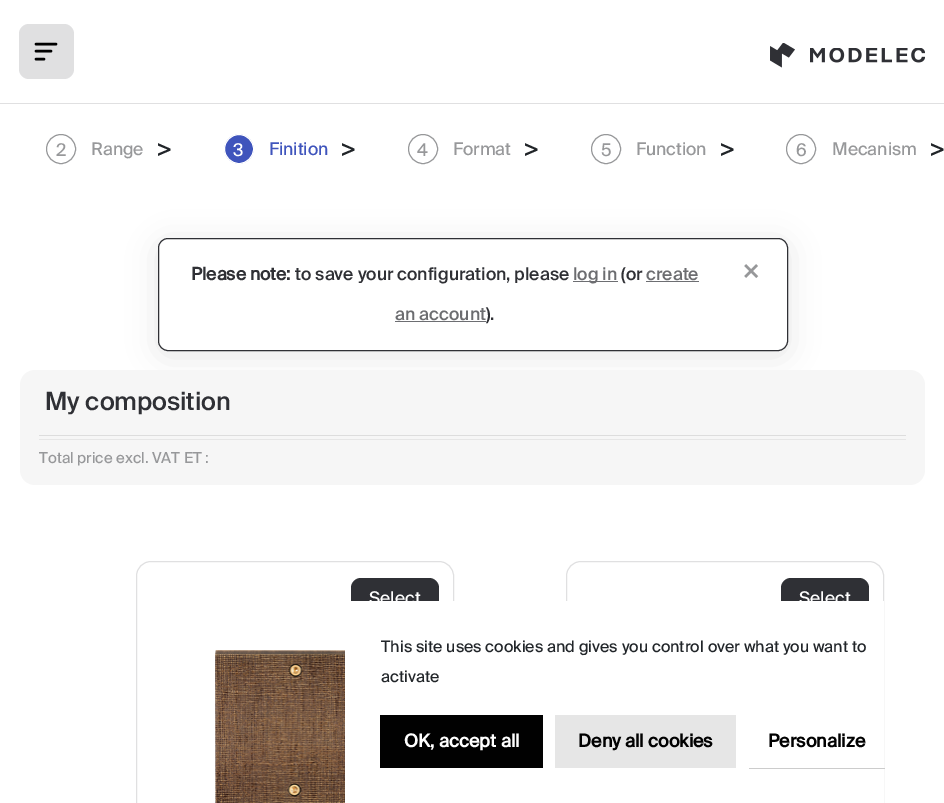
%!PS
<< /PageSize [944 803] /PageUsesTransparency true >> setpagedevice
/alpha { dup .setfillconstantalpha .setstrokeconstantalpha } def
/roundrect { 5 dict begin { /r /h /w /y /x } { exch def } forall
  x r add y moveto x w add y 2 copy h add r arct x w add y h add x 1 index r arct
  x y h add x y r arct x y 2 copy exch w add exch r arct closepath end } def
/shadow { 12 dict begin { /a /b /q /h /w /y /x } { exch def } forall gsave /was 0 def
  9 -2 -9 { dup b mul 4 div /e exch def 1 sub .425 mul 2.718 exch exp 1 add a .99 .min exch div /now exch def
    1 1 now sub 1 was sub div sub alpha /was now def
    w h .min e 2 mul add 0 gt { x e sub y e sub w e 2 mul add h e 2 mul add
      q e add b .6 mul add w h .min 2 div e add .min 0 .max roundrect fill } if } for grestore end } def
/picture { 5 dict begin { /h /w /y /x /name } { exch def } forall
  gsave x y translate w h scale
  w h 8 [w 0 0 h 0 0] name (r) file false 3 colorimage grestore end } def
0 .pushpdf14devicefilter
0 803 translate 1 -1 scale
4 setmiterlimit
1 setgray
0 0 944 803 rectfill
0.878 0.878 0.882 setrgbcolor
0 103 944 1 rectfill
19 24 55 55 10 roundrect fill
0 setgray
2.5 setlinewidth
1 setlinecap
newpath 36 59 moveto 44 59 lineto 36 51 moveto 51 51 lineto 36 44 moveto 56 44 lineto stroke
(img1.rgb) 770 43 155 25 picture
0.592 0.596 0.604 setrgbcolor
1 setlinewidth
0 setlinecap
newpath 61 149 14.5 0 360 arc closepath stroke
/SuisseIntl-Regular [17.5 0 0 -17.5 0 0] selectfont
56 156 moveto (2) show
91 155 moveto (Range) show
/SuisseIntl-Regular [24 0 0 -24 0 0] selectfont
0.129 0.145 0.161 setrgbcolor
156 156 moveto (>) show
0.247 0.329 0.737 setrgbcolor
newpath 239 149 14.5 0 360 arc closepath gsave fill grestore
1 setgray
stroke
/SuisseIntl-Regular [17.5 0 0 -17.5 0 0] selectfont
233 156 moveto (3) show
0.247 0.329 0.737 setrgbcolor
269 155 moveto (Finition) show
/SuisseIntl-Regular [24 0 0 -24 0 0] selectfont
0.129 0.145 0.161 setrgbcolor
340 156 moveto (>) show
0.592 0.596 0.604 setrgbcolor
newpath 423 149 14.5 0 360 arc closepath stroke
/SuisseIntl-Regular [17.5 0 0 -17.5 0 0] selectfont
417 156 moveto (4) show
453 155 moveto (Format) show
/SuisseIntl-Regular [24 0 0 -24 0 0] selectfont
0.129 0.145 0.161 setrgbcolor
523 156 moveto (>) show
0.592 0.596 0.604 setrgbcolor
newpath 606 149 14.5 0 360 arc closepath stroke
/SuisseIntl-Regular [17.5 0 0 -17.5 0 0] selectfont
601 156 moveto (5) show
636 155 moveto (Function) show
/SuisseIntl-Regular [24 0 0 -24 0 0] selectfont
0.129 0.145 0.161 setrgbcolor
719 156 moveto (>) show
0.592 0.596 0.604 setrgbcolor
newpath 801 149 14.5 0 360 arc closepath stroke
/SuisseIntl-Regular [17.5 0 0 -17.5 0 0] selectfont
796 156 moveto (6) show
832 155 moveto (Mecanism) show
/SuisseIntl-Regular [24 0 0 -24 0 0] selectfont
0.129 0.145 0.161 setrgbcolor
929 156 moveto (>) show
0 setgray
158 243 630 113 10 15 0.1 shadow
1 setgray
158.5 238.5 629 112 9.5 roundrect gsave fill grestore
0.184 0.188 0.208 setrgbcolor
stroke
/SuisseIntl-Bold [17.5 0 0 -17.5 0 0] selectfont
191 280 moveto (Please note:) show
/SuisseIntl-Medium [17.5 0 0 -17.5 0 0] selectfont
295 280 moveto (to save your configuration, please) show
0.427 0.431 0.447 setrgbcolor
573 281 45 1 rectfill
0.424 0.427 0.439 setrgbcolor
573 280 moveto (log in) show
0.184 0.188 0.208 setrgbcolor
621 280 moveto (\(or) show
0.424 0.427 0.439 setrgbcolor
646 280 moveto (create) show
0.427 0.431 0.447 setrgbcolor
646 281 53 1 rectfill
/SuisseIntl-Regular [30 0 0 -30 0 0] selectfont
0.592 0.596 0.604 setrgbcolor
741 279 moveto (×) show
/SuisseIntl-Medium [17.5 0 0 -17.5 0 0] selectfont
0.424 0.427 0.439 setrgbcolor
395 320 moveto (an account) show
0.427 0.431 0.447 setrgbcolor
395 321 91 1 rectfill
0.184 0.188 0.208 setrgbcolor
486 320 moveto (\).) show
0.965 setgray
20 370 905 115 15 roundrect fill
/SuisseIntl-Medium [25 0 0 -25 0 0] selectfont
0.184 0.188 0.208 setrgbcolor
45 410 moveto (My composition) show
0.867 setgray
39 435 867 1 rectfill
0.902 setgray
39 439 867 1 rectfill
/SuisseIntl-Regular [15 0 0 -15 0 0] selectfont
0.592 0.596 0.604 setrgbcolor
39 463 moveto (Total price excl. VAT ET :) show
0.878 0.878 0.882 setrgbcolor
136.5 561.5 317 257 14.5 roundrect stroke
0.184 0.188 0.208 setrgbcolor
351 578 88 40 10 roundrect fill
/SuisseIntl-Regular [17.5 0 0 -17.5 0 0] selectfont
1 setgray
369 604 moveto (Select) show
(img2.rgb) 215 650 130 153 picture
0.878 0.878 0.882 setrgbcolor
566.5 561.5 317 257 14.5 roundrect stroke
0.184 0.188 0.208 setrgbcolor
781 578 88 40 10 roundrect fill
1 setgray
799 604 moveto (Select) show
351 601 533 202 rectfill
/SuisseIntl-Regular [16 0 0 -16 0 0] selectfont
0.129 0.145 0.161 setrgbcolor
381 652 moveto (This site uses cookies and gives you control over what you want to) show
381 682 moveto (activate) show
0.004 setgray
380 715 163 53 rectfill
/SuisseIntl-Bold [18 0 0 -18 0 0] selectfont
1 setgray
404 747 moveto (OK, accept all) show
0.902 setgray
555 715 181 53 rectfill
0.004 setgray
578 747 moveto (Deny all cookies) show
0.8 setgray
749 768 136 1 rectfill
0.004 setgray
768 747 moveto (Personalize) show
.poppdf14devicefilter showpage
